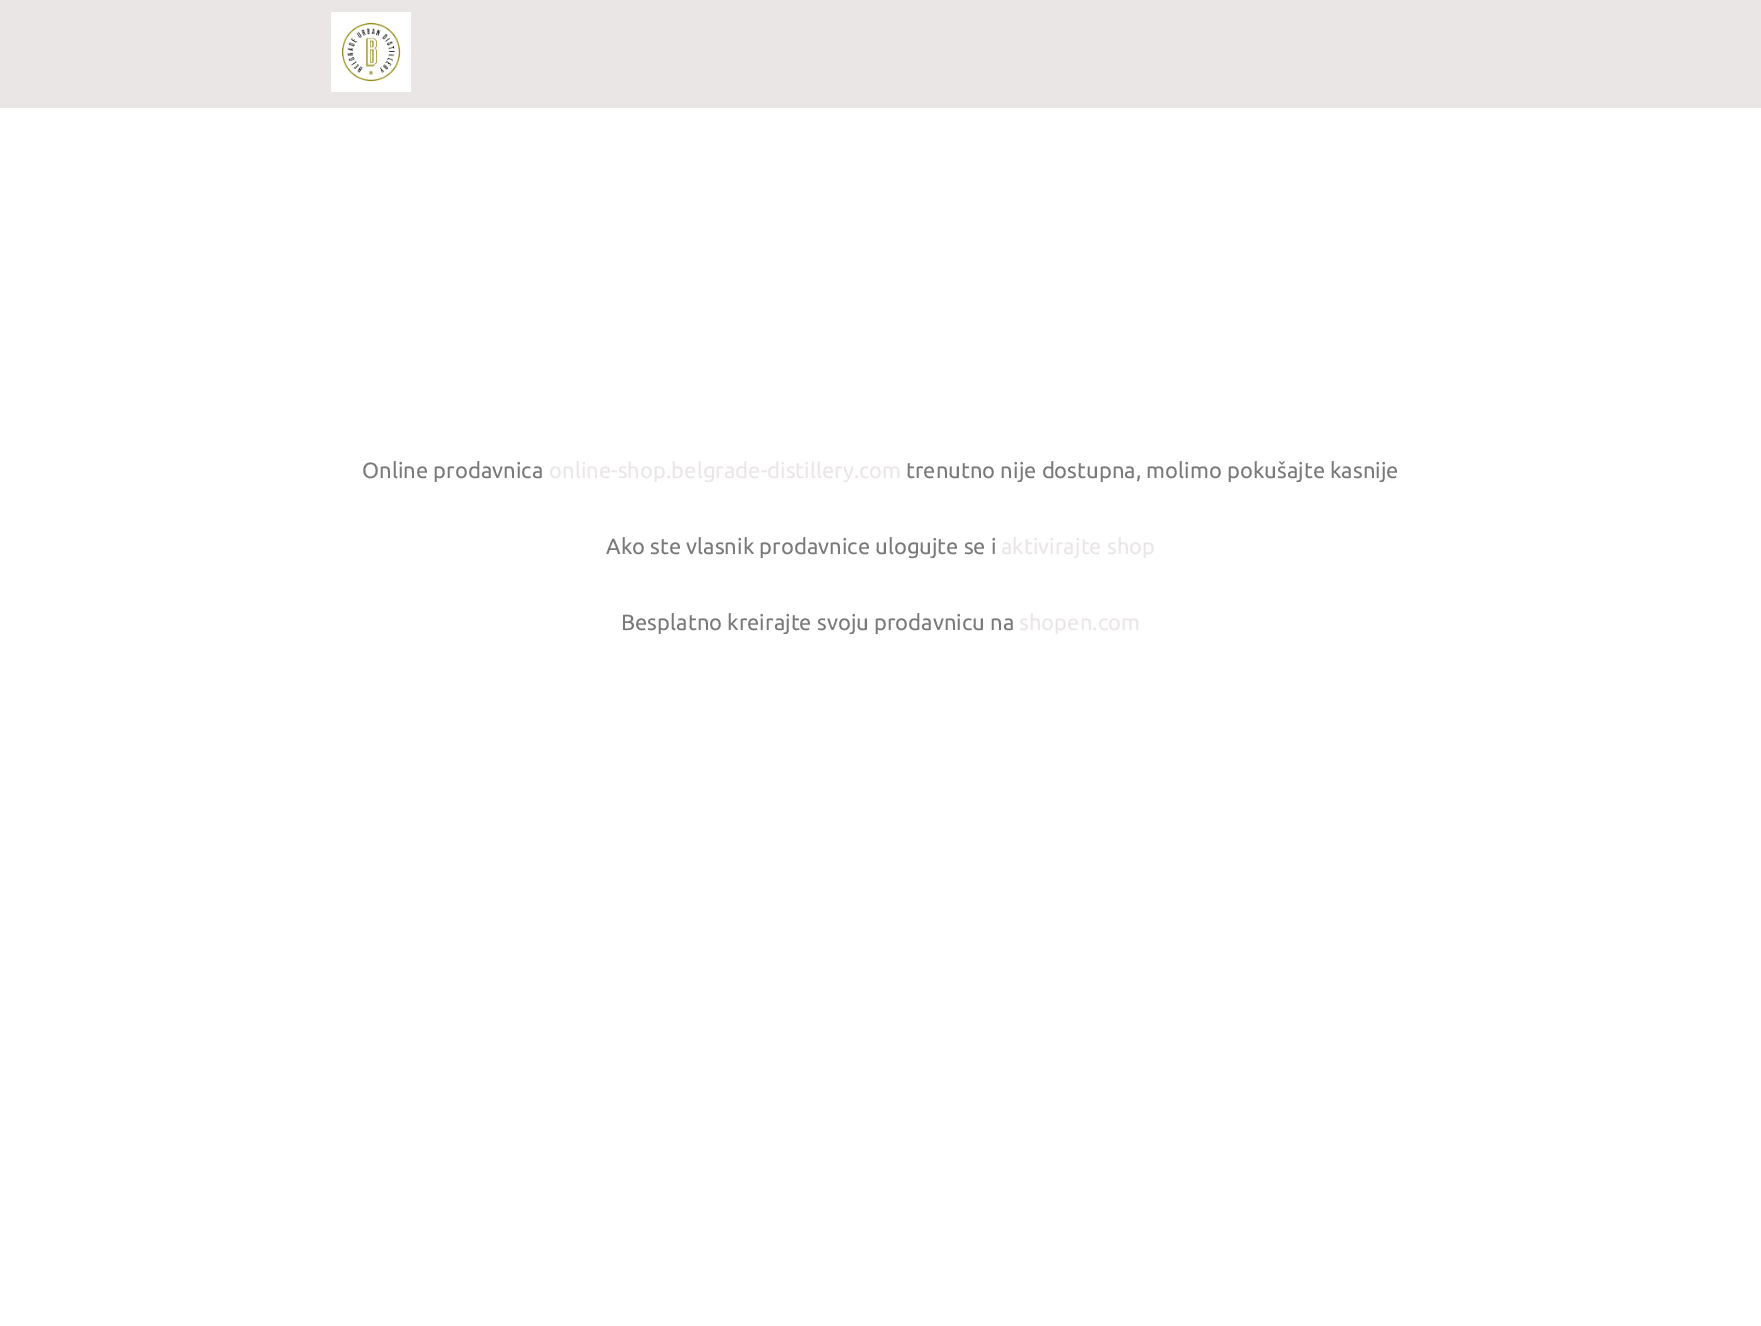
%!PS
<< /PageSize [1761 1326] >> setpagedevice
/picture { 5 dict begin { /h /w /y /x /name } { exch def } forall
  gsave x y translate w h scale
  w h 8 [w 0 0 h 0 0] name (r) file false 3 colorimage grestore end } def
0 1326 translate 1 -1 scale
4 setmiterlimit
1 setgray
0 0 1761 1326 rectfill
0.922 0.902 0.902 setrgbcolor
0 0 1761 108 rectfill
(img1.rgb) 331 12 80 80 picture
/Ubuntu-Regular [22 0 0 -22 0 0] selectfont
0.475 setgray
362 478 moveto (Online prodavnica) show
0.922 0.902 0.902 setrgbcolor
549 478 moveto (online-shop.belgrade-distillery.com) show
0.475 setgray
906 478 moveto (trenutno nije dostupna, molimo pokušajte kasnije) show
606 554 moveto (Ako ste vlasnik prodavnice ulogujte se i) show
0.922 0.902 0.902 setrgbcolor
1001 554 moveto (aktivirajte shop) show
0.475 setgray
621 630 moveto (Besplatno kreirajte svoju prodavnicu na) show
0.922 0.902 0.902 setrgbcolor
1019 630 moveto (shopen.com) show
showpage
